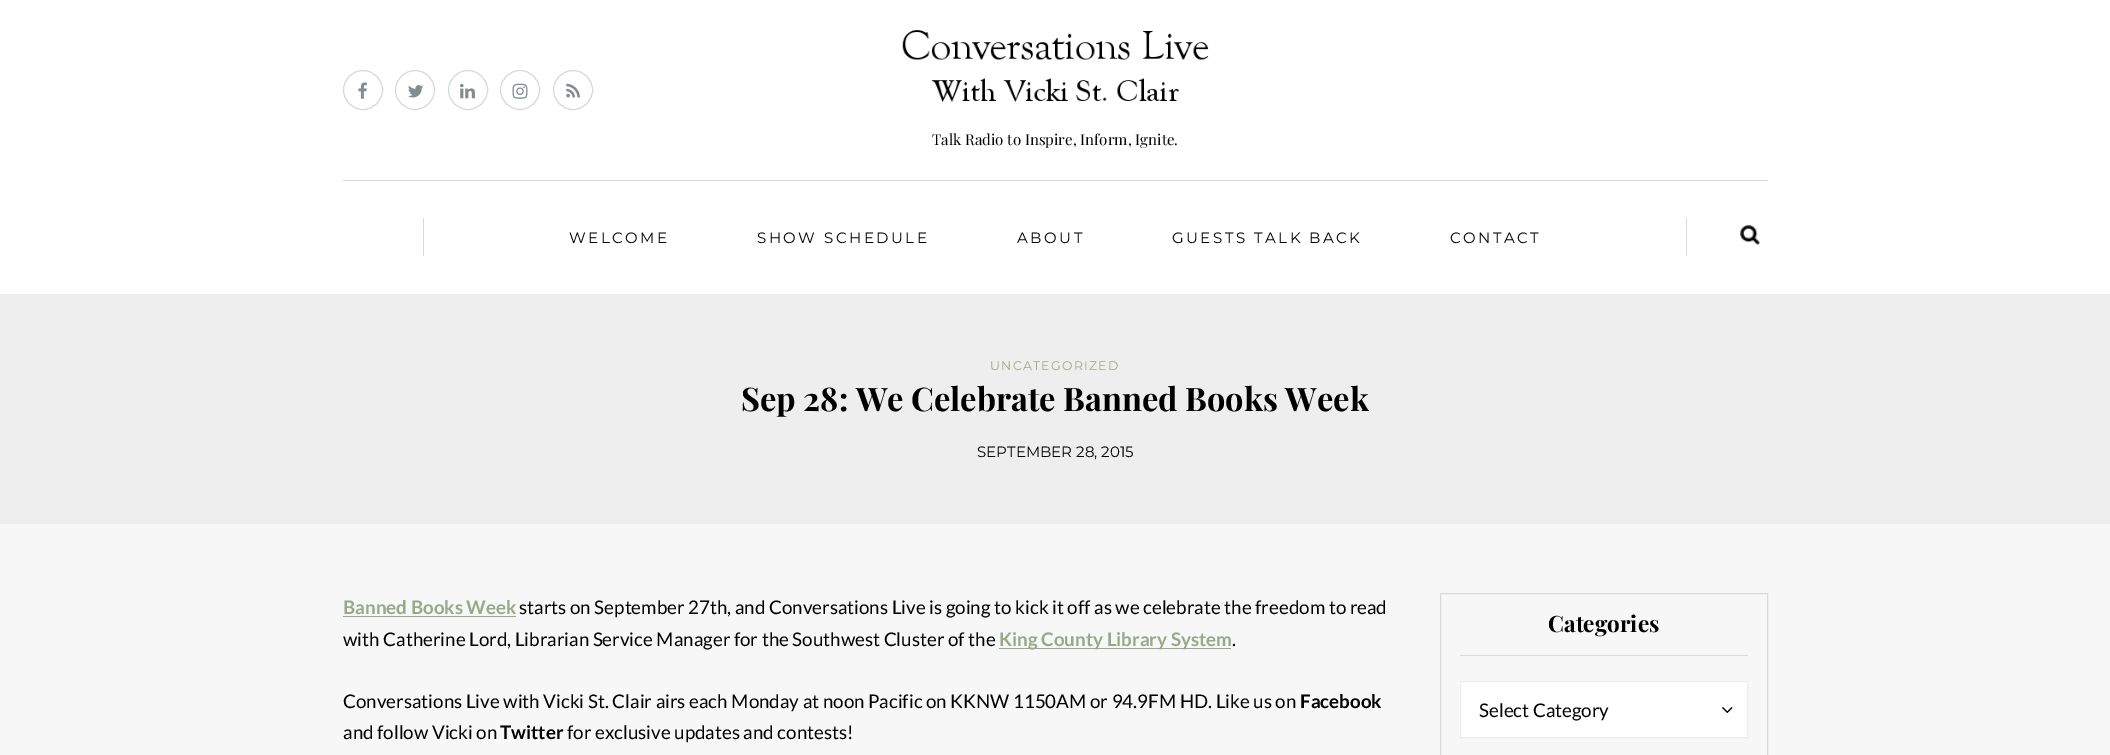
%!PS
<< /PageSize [2110 755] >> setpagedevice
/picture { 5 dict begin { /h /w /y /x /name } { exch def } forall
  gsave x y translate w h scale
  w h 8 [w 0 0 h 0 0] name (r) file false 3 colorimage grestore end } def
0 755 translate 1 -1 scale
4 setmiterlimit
0.969 setgray
0 0 2110 755 rectfill
1 setgray
0 0 2110 294 rectfill
0.851 setgray
newpath 363 90 19.5 0 360 arc closepath stroke
(img1.rgb) 358 82 9 17 picture
newpath 415 90 19.5 0 360 arc closepath stroke
(img2.rgb) 408 85 16 13 picture
newpath 468 90 19.5 0 360 arc closepath stroke
(img3.rgb) 460 84 15 15 picture
newpath 520 90 19.5 0 360 arc closepath stroke
(img4.rgb) 512 83 16 16 picture
newpath 573 90 19.5 0 360 arc closepath stroke
(img5.rgb) 566 83 14 15 picture
(img6.rgb) 902 30 307 72 picture
/PlayfairDisplay-Regular [15 0 0 -15 0 0] selectfont
0 setgray
932 145 moveto (Talk Radio to Inspire, Inform, Ignite.) show
0.851 setgray
423 218 1 38 rectfill
343 180 1425 1 rectfill
/Montserrat-Thin [15 0 0 -15 0 0] selectfont
0 setgray
569 243 moveto 2.5 0 (WELCOME) ashow
757 243 moveto 2.5 0 (SHOW SCHEDULE) ashow
1017 243 moveto 2.5 0 (ABOUT) ashow
1172 243 moveto 2.5 0 (GUESTS TALK BACK) ashow
1450 243 moveto 2.5 0 (CONTACT) ashow
0.851 setgray
1686 218 1 38 rectfill
(img7.rgb) 1740 225 20 20 picture
0.933 setgray
0 294 2110 230 rectfill
/Montserrat-Thin [12.5 0 0 -12.5 0 0] selectfont
0.608 0.655 0.541 setrgbcolor
990 370 moveto 1.25 0 (UNCATEGORIZED) ashow
/PlayfairDisplay-Bold [32.5 0 0 -32.5 0 0] selectfont
0 setgray
741 411 moveto (Sep 28: We Celebrate Banned Books Week) show
/Montserrat-Thin [15 0 0 -15 0 0] selectfont
977 457 moveto (SEPTEMBER 28, 2015) show
/Lato-Bold [18.75 0 0 -18.75 0 0] selectfont
0.608 0.655 0.541 setrgbcolor
343 614 moveto (Banned Books Week) show
343 616 173 1 rectfill
/Lato-Regular [18.75 0 0 -18.75 0 0] selectfont
0 setgray
519 614 moveto (starts on September 27th, and Conversations Live is going to kick it off as we celebrate the freedom to read) show
343 646 moveto (with Catherine Lord, Librarian Service Manager for the Southwest Cluster of the) show
0.608 0.655 0.541 setrgbcolor
999 648 232 1 rectfill
/Lato-Bold [18.75 0 0 -18.75 0 0] selectfont
999 646 moveto (King County Library System) show
/Lato-Regular [18.75 0 0 -18.75 0 0] selectfont
0 setgray
1232 646 moveto (.) show
343 708 moveto (Conversations Live with Vicki St. Clair airs each Monday at noon Pacific on KKNW 1150AM or 94.9FM HD. Like us on) show
/Lato-Bold [18.75 0 0 -18.75 0 0] selectfont
1300 708 moveto (Facebook) show
/Lato-Regular [18.75 0 0 -18.75 0 0] selectfont
343 739 moveto (and follow Vicki on) show
/Lato-Bold [18.75 0 0 -18.75 0 0] selectfont
500 739 moveto (Twitter) show
/Lato-Regular [18.75 0 0 -18.75 0 0] selectfont
567 739 moveto (for exclusive updates and contests!) show
0.851 setgray
1440.5 593.5 327 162 rectstroke
1460 655 288 1 rectfill
/PlayfairDisplay-Bold [22.5 0 0 -22.5 0 0] selectfont
0 setgray
1548 632 moveto (Categories) show
1 setgray
newpath 1460.5 681.5 moveto 1747.5 681.5 lineto 1747.5 737.5 lineto 1460.5 737.5 lineto closepath gsave fill grestore
0.933 setgray
stroke
/Lato-Regular [18.75 0 0 -18.75 0 0] selectfont
0 setgray
1479 717 moveto (Select Category) show
(img8.rgb) 1722 707 11 6 picture
showpage
